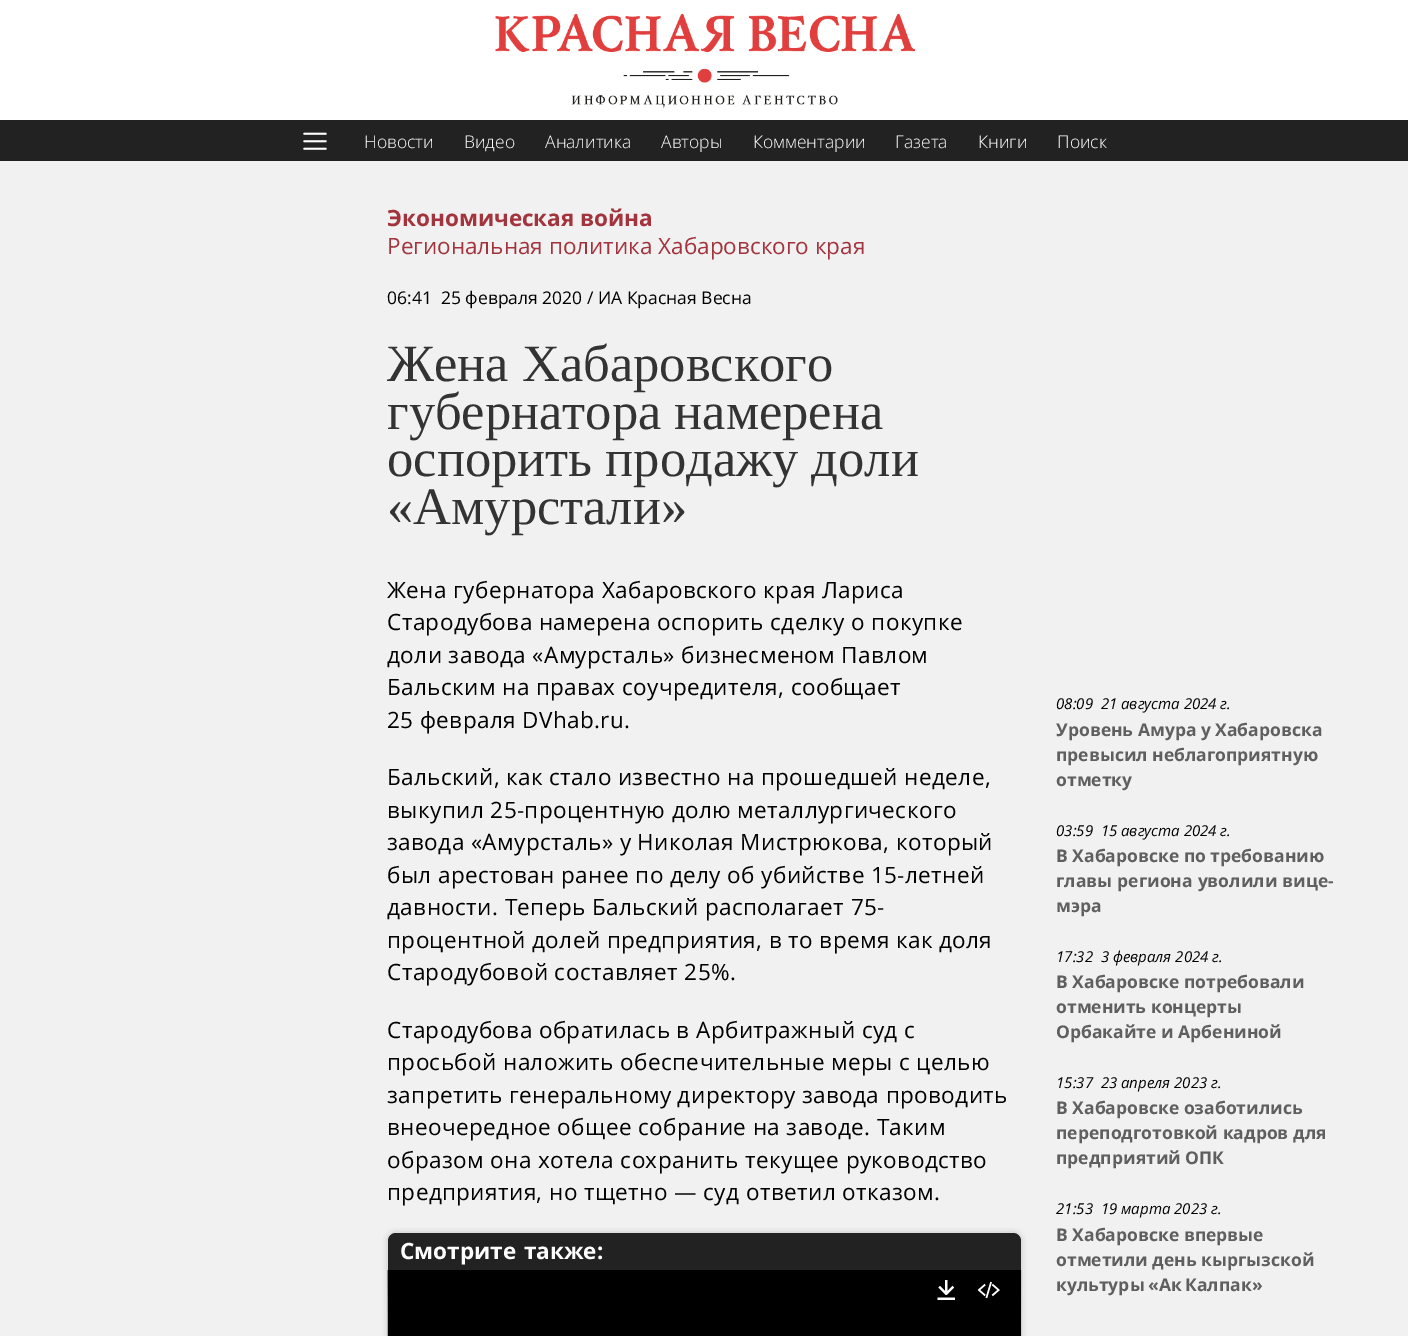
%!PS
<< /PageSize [1408 1336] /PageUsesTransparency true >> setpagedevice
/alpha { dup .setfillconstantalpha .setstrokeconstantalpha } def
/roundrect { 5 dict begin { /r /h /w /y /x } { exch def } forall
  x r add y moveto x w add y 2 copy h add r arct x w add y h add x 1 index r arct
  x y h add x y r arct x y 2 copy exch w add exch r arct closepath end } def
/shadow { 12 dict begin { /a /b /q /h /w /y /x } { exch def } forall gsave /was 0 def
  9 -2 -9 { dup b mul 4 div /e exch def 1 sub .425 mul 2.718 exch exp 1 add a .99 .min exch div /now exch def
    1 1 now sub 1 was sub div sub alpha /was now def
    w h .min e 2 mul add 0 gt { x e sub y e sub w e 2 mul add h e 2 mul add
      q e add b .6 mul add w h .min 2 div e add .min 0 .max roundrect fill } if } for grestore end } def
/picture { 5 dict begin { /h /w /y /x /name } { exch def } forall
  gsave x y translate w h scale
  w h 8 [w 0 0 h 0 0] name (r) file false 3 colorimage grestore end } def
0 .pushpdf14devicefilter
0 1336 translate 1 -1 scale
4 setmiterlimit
0.945 setgray
0 0 1408 1336 rectfill
1 setgray
0 0 1408 120 rectfill
(img1.rgb) 495 13 420 95 picture
0.133 setgray
0 120 1408 41 rectfill
(img2.rgb) 303 132 24 18 picture
/OpenSans-Light [17.5 0 0 -17.5 0 0] selectfont
1 setgray
364 148 moveto (Новости) show
464 148 moveto (Видео) show
545 148 moveto (Аналитика) show
661 148 moveto (Авторы) show
753 148 moveto (Комментарии) show
895 148 moveto (Газета) show
978 148 moveto (Книги) show
1057 148 moveto (Поиск) show
/OpenSans-Bold [22.5 0 0 -22.5 0 0] selectfont
0.639 0.2 0.239 setrgbcolor
387 226 moveto (Экономическая война) show
/OpenSans-Regular [22.5 0 0 -22.5 0 0] selectfont
387 254 moveto (Региональная политика Хабаровского края) show
/OpenSans-Regular [17.5 0 0 -17.5 0 0] selectfont
0 setgray
387 304 moveto (06:41  25 февраля 2020 / ИА Красная Весна) show
/LiberationSerif-Regular [52.5 0 0 -52.5 0 0] selectfont
0.2 setgray
387 381 moveto (Жена Хабаровского) show
387 429 moveto (губернатора намерена) show
387 476 moveto (оспорить продажу доли) show
387 524 moveto («Амурстали») show
/OpenSans-Regular [22.5 0 0 -22.5 0 0] selectfont
0 setgray
387 598 moveto 0.4 0 (Жена губернатора Хабаровского края Лариса) ashow
387 630 moveto 0.4 0 (Стародубова намерена оспорить сделку о покупке) ashow
387 663 moveto 0.4 0 (доли завода «Амурсталь» бизнесменом Павлом) ashow
387 695 moveto 0.4 0 (Бальским на правах соучредителя, сообщает) ashow
387 728 moveto 0.4 0 (25 февраля DVhab.ru.) ashow
387 785 moveto 0.4 0 (Бальский, как стало известно на прошедшей неделе,) ashow
387 818 moveto 0.4 0 (выкупил 25-процентную долю металлургического) ashow
387 850 moveto 0.4 0 (завода «Амурсталь» у Николая Мистрюкова, который) ashow
387 883 moveto 0.4 0 (был арестован ранее по делу об убийстве 15-летней) ashow
387 915 moveto 0.4 0 (давности. Теперь Бальский располагает 75-) ashow
387 948 moveto 0.4 0 (процентной долей предприятия, в то время как доля) ashow
387 980 moveto 0.4 0 (Стародубовой составляет 25%.) ashow
387 1038 moveto 0.4 0 (Стародубова обратилась в Арбитражный суд с) ashow
387 1070 moveto 0.4 0 (просьбой наложить обеспечительные меры с целью) ashow
387 1103 moveto 0.4 0 (запретить генеральному директору завода проводить) ashow
387 1135 moveto 0.4 0 (внеочередное общее собрание на заводе. Таким) ashow
387 1168 moveto 0.4 0 (образом она хотела сохранить текущее руководство) ashow
387 1200 moveto 0.4 0 (предприятия, но тщетно — суд ответил отказом.) ashow
0.439 setgray
391 1236 627 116 4 4 1 shadow
0.133 setgray
388 1233 633 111 8 roundrect fill
/OpenSans-Bold [22.5 0 0 -22.5 0 0] selectfont
1 setgray
400 1259 moveto 2 0 32 (Смотрите также:) widthshow
(img3.rgb) 387 1270 635 66 picture
/OpenSans-Italic [15 0 0 -15 0 0] selectfont
0 setgray
1056 709 moveto (08:09  21 августа 2024 г.) show
/OpenSans-Bold [17.5 0 0 -17.5 0 0] selectfont
0.373 setgray
1056 736 moveto (Уровень Амура у Хабаровска) show
1056 761 moveto (превысил неблагоприятную) show
1056 786 moveto (отметку) show
/OpenSans-Italic [15 0 0 -15 0 0] selectfont
0 setgray
1056 836 moveto (03:59  15 августа 2024 г.) show
/OpenSans-Bold [17.5 0 0 -17.5 0 0] selectfont
0.373 setgray
1056 862 moveto (В Хабаровске по требованию) show
1056 887 moveto 0.5 0 32 (главы региона уволили вице-) widthshow
1056 912 moveto (мэра) show
/OpenSans-Italic [15 0 0 -15 0 0] selectfont
0 setgray
1056 962 moveto (17:32  3 февраля 2024 г.) show
/OpenSans-Bold [17.5 0 0 -17.5 0 0] selectfont
0.373 setgray
1056 988 moveto (В Хабаровске потребовали) show
1056 1013 moveto (отменить концерты) show
1056 1038 moveto (Орбакайте и Арбениной) show
/OpenSans-Italic [15 0 0 -15 0 0] selectfont
0 setgray
1056 1088 moveto (15:37  23 апреля 2023 г.) show
/OpenSans-Bold [17.5 0 0 -17.5 0 0] selectfont
0.373 setgray
1056 1114 moveto (В Хабаровске озаботились) show
1056 1139 moveto (переподготовкой кадров для) show
1056 1164 moveto (предприятий ОПК) show
/OpenSans-Italic [15 0 0 -15 0 0] selectfont
0 setgray
1056 1214 moveto (21:53  19 марта 2023 г.) show
/OpenSans-Bold [17.5 0 0 -17.5 0 0] selectfont
0.373 setgray
1056 1241 moveto (В Хабаровске впервые) show
1056 1266 moveto (отметили день кыргызской) show
1056 1291 moveto -1 0 32 (культуры «Ак Калпак») widthshow
.poppdf14devicefilter showpage
